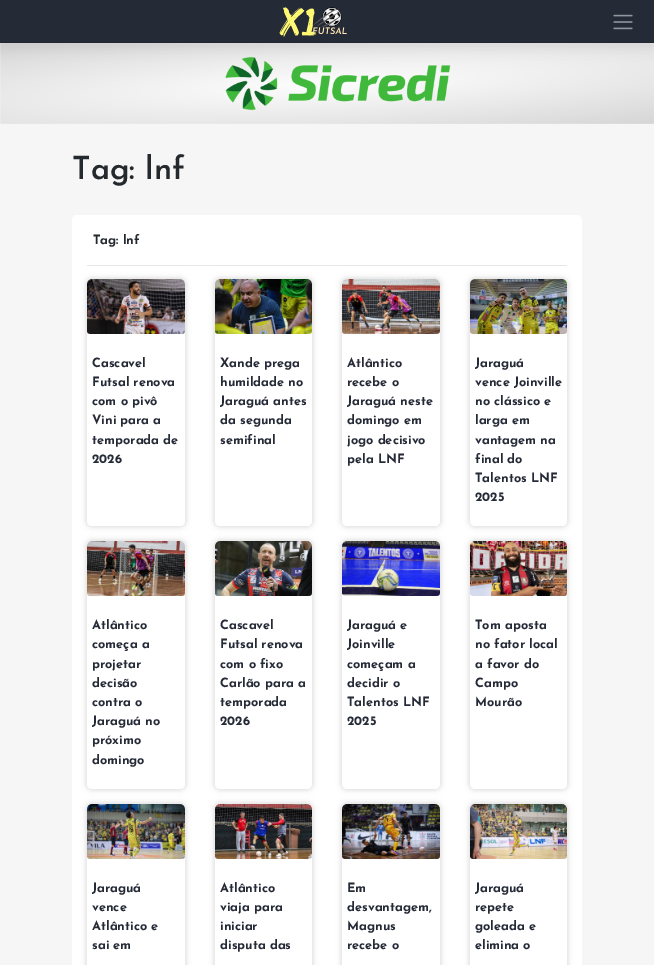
%!PS
<< /PageSize [654 965] /PageUsesTransparency true >> setpagedevice
/alpha { dup .setfillconstantalpha .setstrokeconstantalpha } def
/roundrect { 5 dict begin { /r /h /w /y /x } { exch def } forall
  x r add y moveto x w add y 2 copy h add r arct x w add y h add x 1 index r arct
  x y h add x y r arct x y 2 copy exch w add exch r arct closepath end } def
/shadow { 12 dict begin { /a /b /q /h /w /y /x } { exch def } forall gsave /was 0 def
  9 -2 -9 { dup b mul 4 div /e exch def 1 sub .425 mul 2.718 exch exp 1 add a .99 .min exch div /now exch def
    1 1 now sub 1 was sub div sub alpha /was now def
    w h .min e 2 mul add 0 gt { x e sub y e sub w e 2 mul add h e 2 mul add
      q e add b .6 mul add w h .min 2 div e add .min 0 .max roundrect fill } if } for grestore end } def
/picture { 5 dict begin { /h /w /y /x /name } { exch def } forall
  gsave x y translate w h scale
  w h 8 [w 0 0 h 0 0] name (r) file false 3 colorimage grestore end } def
0 .pushpdf14devicefilter
0 965 translate 1 -1 scale
4 setmiterlimit
0.965 setgray
0 0 654 965 rectfill
(img3.rgb) 0 43 654 81 picture
0 setgray
0 6 654 43 0 6.5 0.05 shadow
0.145 0.165 0.216 setrgbcolor
0 0 654 42 rectfill
0.129 0.149 0.196 setrgbcolor
0 42 654 1 rectfill
(img1.rgb) 279 7 68 30 picture
(img2.rgb) 613 14 20 16 picture
/JosefinSans-SemiBold [32 0 0 -32 0 0] selectfont
0.141 0.161 0.18 setrgbcolor
72 179 moveto (Tag: lnf) show
1 setgray
72 215 510 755 5 roundrect fill
/JosefinSans-Bold [12.75 0 0 -12.75 0 0] selectfont
0.141 0.161 0.18 setrgbcolor
93 244 moveto (Tag: lnf) show
0.902 setgray
87 265 480 1 rectfill
0.855 0.851 0.851 setrgbcolor
86 278 100 249 6 3 1 shadow
1 setgray
87 279 98 247 5 roundrect fill
(img4.rgb) 87 279 98 55 picture
0.145 0.165 0.216 setrgbcolor
92 367 moveto (Cascavel) show
92 386 moveto (Futsal renova) show
92 405 moveto (com o pivô) show
92 424 moveto (Vini para a) show
92 444 moveto (temporada de) show
92 463 moveto (2026) show
0.855 0.851 0.851 setrgbcolor
214 278 99 249 6 3 1 shadow
1 setgray
215 279 97 247 5 roundrect fill
(img5.rgb) 215 279 97 55 picture
0.145 0.165 0.216 setrgbcolor
220 367 moveto (Xande prega) show
220 386 moveto (humildade no) show
220 405 moveto (Jaraguá antes) show
220 424 moveto (da segunda) show
220 444 moveto (semifinal) show
0.855 0.851 0.851 setrgbcolor
341 278 100 249 6 3 1 shadow
1 setgray
342 279 98 247 5 roundrect fill
(img6.rgb) 342 279 98 55 picture
0.145 0.165 0.216 setrgbcolor
347 367 moveto (Atlântico) show
347 386 moveto (recebe o) show
347 405 moveto (Jaraguá neste) show
347 424 moveto (domingo em) show
347 444 moveto (jogo decisivo) show
347 463 moveto (pela LNF) show
0.855 0.851 0.851 setrgbcolor
469 278 99 249 6 3 1 shadow
1 setgray
470 279 97 247 5 roundrect fill
(img7.rgb) 470 279 97 55 picture
0.145 0.165 0.216 setrgbcolor
475 367 moveto (Jaraguá) show
475 386 moveto (vence Joinville) show
475 405 moveto (no clássico e) show
475 424 moveto (larga em) show
475 444 moveto (vantagem na) show
475 463 moveto (final do) show
475 482 moveto (Talentos LNF) show
475 501 moveto (2025) show
0.855 0.851 0.851 setrgbcolor
86 540 100 250 6 3 1 shadow
1 setgray
87 541 98 248 5 roundrect fill
(img8.rgb) 87 541 98 55 picture
0.145 0.165 0.216 setrgbcolor
92 629 moveto (Atlântico) show
92 648 moveto (começa a) show
92 668 moveto (projetar) show
92 687 moveto (decisão) show
92 706 moveto (contra o) show
92 725 moveto (Jaraguá no) show
92 744 moveto (próximo) show
92 764 moveto (domingo) show
0.855 0.851 0.851 setrgbcolor
214 540 99 250 6 3 1 shadow
1 setgray
215 541 97 248 5 roundrect fill
(img9.rgb) 215 541 97 55 picture
0.145 0.165 0.216 setrgbcolor
220 629 moveto (Cascavel) show
220 648 moveto (Futsal renova) show
220 668 moveto (com o fixo) show
220 687 moveto (Carlão para a) show
220 706 moveto (temporada) show
220 725 moveto (2026) show
0.855 0.851 0.851 setrgbcolor
341 540 100 250 6 3 1 shadow
1 setgray
342 541 98 248 5 roundrect fill
(img10.rgb) 342 541 98 55 picture
0.145 0.165 0.216 setrgbcolor
347 629 moveto (Jaraguá e) show
347 648 moveto (Joinville) show
347 668 moveto (começam a) show
347 687 moveto (decidir o) show
347 706 moveto (Talentos LNF) show
347 725 moveto (2025) show
0.855 0.851 0.851 setrgbcolor
469 540 99 250 6 3 1 shadow
1 setgray
470 541 97 248 5 roundrect fill
(img11.rgb) 470 541 97 55 picture
0.145 0.165 0.216 setrgbcolor
475 629 moveto (Tom aposta) show
475 648 moveto (no fator local) show
475 668 moveto (a favor do) show
475 687 moveto (Campo) show
475 706 moveto (Mourão) show
0.855 0.851 0.851 setrgbcolor
86 803 100 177 6 3 1 shadow
1 setgray
87 804 98 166 5 roundrect fill
(img12.rgb) 87 804 98 55 picture
0.145 0.165 0.216 setrgbcolor
92 892 moveto (Jaraguá) show
92 911 moveto (vence) show
92 930 moveto (Atlântico e) show
92 949 moveto (sai em) show
0.855 0.851 0.851 setrgbcolor
214 803 99 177 6 3 1 shadow
1 setgray
215 804 97 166 5 roundrect fill
(img13.rgb) 215 804 97 55 picture
0.145 0.165 0.216 setrgbcolor
220 892 moveto (Atlântico) show
220 911 moveto (viaja para) show
220 930 moveto (iniciar) show
220 949 moveto (disputa das) show
0.855 0.851 0.851 setrgbcolor
341 803 100 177 6 3 1 shadow
1 setgray
342 804 98 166 5 roundrect fill
(img14.rgb) 342 804 98 55 picture
0.145 0.165 0.216 setrgbcolor
347 892 moveto (Em) show
347 911 moveto (desvantagem,) show
347 930 moveto (Magnus) show
347 949 moveto (recebe o) show
0.855 0.851 0.851 setrgbcolor
469 803 99 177 6 3 1 shadow
1 setgray
470 804 97 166 5 roundrect fill
(img15.rgb) 470 804 97 55 picture
0.145 0.165 0.216 setrgbcolor
475 892 moveto (Jaraguá) show
475 911 moveto (repete) show
475 930 moveto (goleada e) show
475 949 moveto (elimina o) show
.poppdf14devicefilter showpage
